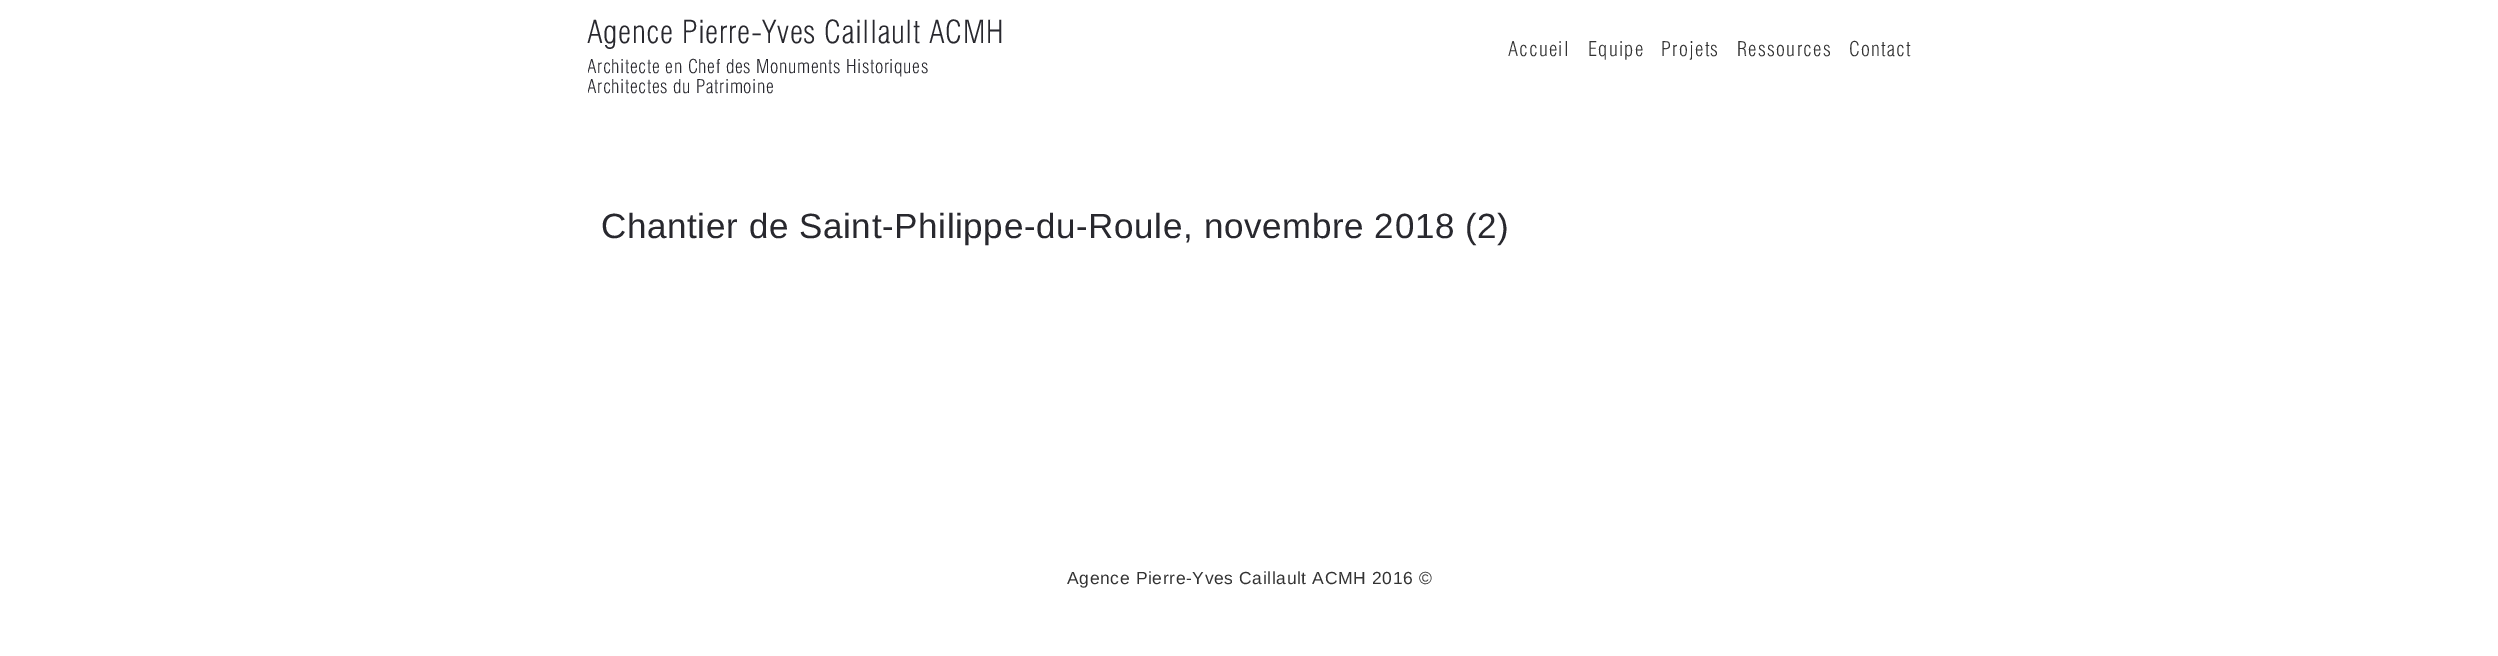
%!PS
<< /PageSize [2498 656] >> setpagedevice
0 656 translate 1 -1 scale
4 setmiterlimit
1 setgray
0 0 2498 656 rectfill
/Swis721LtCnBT-Light [31.25 0 0 -31.25 0 0] selectfont
0.157 0.157 0.18 setrgbcolor
587 43 moveto 0.62 0 (Agence Pierre-Yves Caillault ACMH) ashow
gsave
588 13 416 100 rectclip
/Swis721LtCnBT-Light [18.75 0 0 -18.75 0 0] selectfont
587 73 moveto 0.62 0 (Architecte en Chef des Monuments Historiques) ashow
587 93 moveto 0.62 0 (Architectes du Patrimoine) ashow
grestore
/Swis721LtCnBT-Light [20 0 0 -20 0 0] selectfont
0.2 setgray
1508 56 moveto 1.25 0 (Accueil) ashow
1588 56 moveto 1.25 0 (Equipe) ashow
1661 56 moveto 1.25 0 (Projets) ashow
1737 56 moveto 1.25 0 (Ressources) ashow
1849 56 moveto 1.25 0 (Contact) ashow
/LiberationSans-Regular [35 0 0 -35 0 0] selectfont
0.157 0.157 0.18 setrgbcolor
601 238 moveto 0.62 0 (Chantier de Saint-Philippe-du-Roule, novembre 2018 \(2\)) ashow
/LiberationSans-Regular [17.5 0 0 -17.5 0 0] selectfont
0.2 setgray
1067 584 moveto 0.62 0 (Agence Pierre-Yves Caillault ACMH 2016 ©) ashow
showpage
